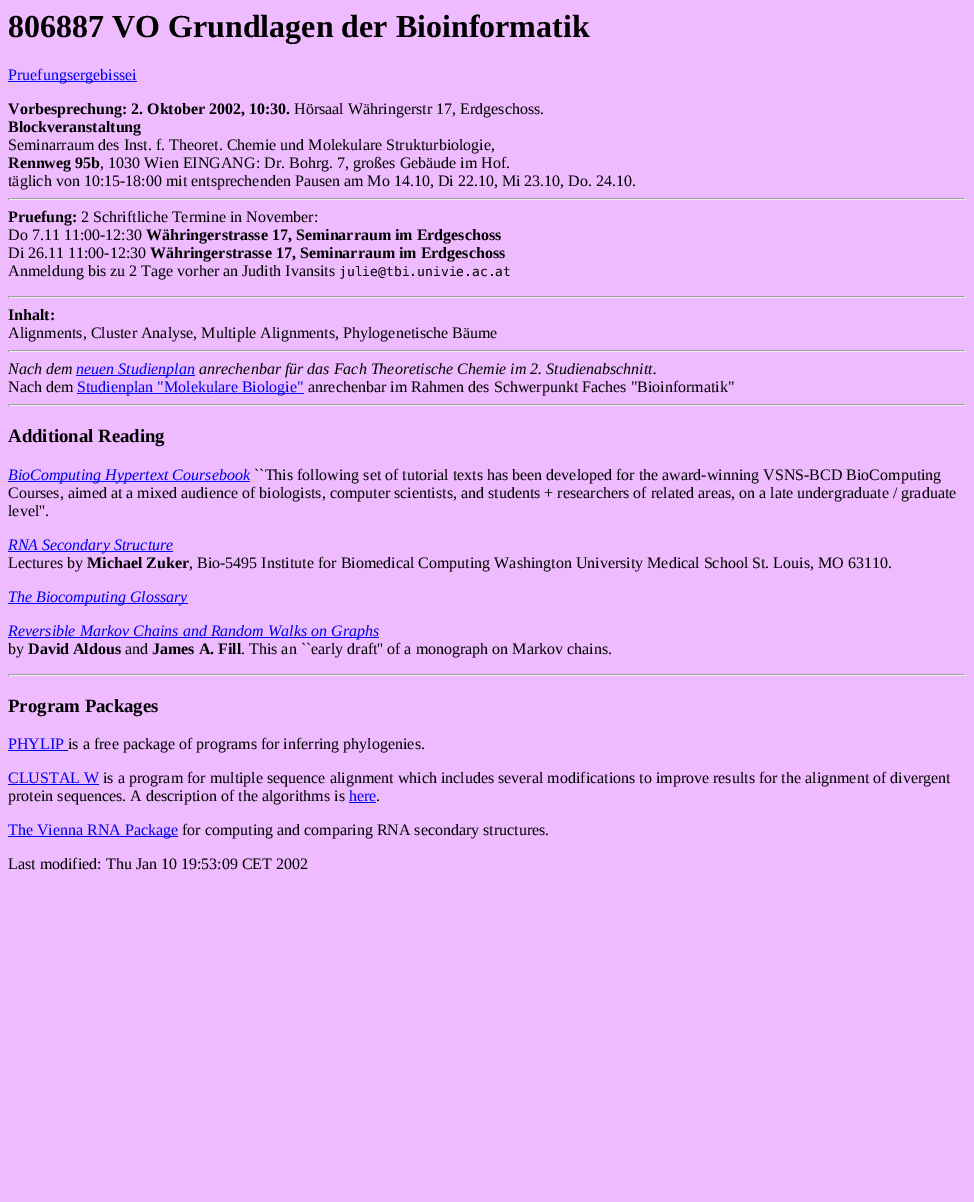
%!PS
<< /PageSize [974 1202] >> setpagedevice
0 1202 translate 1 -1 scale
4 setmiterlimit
0.933 0.733 1 setrgbcolor
0 0 974 1202 rectfill
/LiberationSerif-Bold [32 0 0 -32 0 0] selectfont
0 setgray
8 37 moveto (806887 VO Grundlagen der Bioinformatik) show
0 0 0.933 setrgbcolor
8 81 129 1 rectfill
/LiberationSerif-Regular [16 0 0 -16 0 0] selectfont
8 80 moveto (Pruefungsergebissei) show
/LiberationSerif-Bold [16 0 0 -16 0 0] selectfont
0 setgray
8 114 moveto (Vorbesprechung: 2. Oktober 2002, 10:30.) show
/LiberationSerif-Regular [16 0 0 -16 0 0] selectfont
294 114 moveto (Hörsaal Währingerstr 17, Erdgeschoss.) show
/LiberationSerif-Bold [16 0 0 -16 0 0] selectfont
8 132 moveto (Blockveranstaltung) show
/LiberationSerif-Regular [16 0 0 -16 0 0] selectfont
8 150 moveto (Seminarraum des Inst. f. Theoret. Chemie und Molekulare Strukturbiologie,) show
/LiberationSerif-Bold [16 0 0 -16 0 0] selectfont
8 168 moveto (Rennweg 95b) show
/LiberationSerif-Regular [16 0 0 -16 0 0] selectfont
100 168 moveto (, 1030 Wien EINGANG: Dr. Bohrg. 7, großes Gebäude im Hof.) show
8 186 moveto (täglich von 10:15-18:00 mit entsprechenden Pausen am Mo 14.10, Di 22.10, Mi 23.10, Do. 24.10.) show
0.624 setgray
8 198 958 1 rectfill
0.933 setgray
965 198 1 2 rectfill
8 199 958 1 rectfill
0.624 setgray
8 198 1 2 rectfill
/LiberationSerif-Bold [16 0 0 -16 0 0] selectfont
0 setgray
8 222 moveto (Pruefung:) show
/LiberationSerif-Regular [16 0 0 -16 0 0] selectfont
81 222 moveto (2 Schriftliche Termine in November:) show
8 240 moveto (Do 7.11 11:00-12:30) show
/LiberationSerif-Bold [16 0 0 -16 0 0] selectfont
146 240 moveto (Währingerstrasse 17, Seminarraum im Erdgeschoss) show
/LiberationSerif-Regular [16 0 0 -16 0 0] selectfont
8 258 moveto (Di 26.11 11:00-12:30) show
/LiberationSerif-Bold [16 0 0 -16 0 0] selectfont
150 258 moveto (Währingerstrasse 17, Seminarraum im Erdgeschoss) show
/LiberationSerif-Regular [16 0 0 -16 0 0] selectfont
8 276 moveto (Anmeldung bis zu 2 Tage vorher an Judith Ivansits) show
/DejaVuSansMono-Regular [13 0 0 -13 0 0] selectfont
339 276 moveto (julie@tbi.univie.ac.at) show
0.624 setgray
8 296 958 1 rectfill
0.933 setgray
965 296 1 2 rectfill
8 297 958 1 rectfill
0.624 setgray
8 296 1 2 rectfill
/LiberationSerif-Bold [16 0 0 -16 0 0] selectfont
0 setgray
8 320 moveto (Inhalt:) show
/LiberationSerif-Regular [16 0 0 -16 0 0] selectfont
8 338 moveto (Alignments, Cluster Analyse, Multiple Alignments, Phylogenetische Bäume) show
0.624 setgray
8 350 958 1 rectfill
0.933 setgray
965 350 1 2 rectfill
8 351 958 1 rectfill
0.624 setgray
8 350 1 2 rectfill
/LiberationSerif-Italic [16 0 0 -16 0 0] selectfont
0 setgray
8 374 moveto (Nach dem) show
0 0 0.933 setrgbcolor
76 375 119 1 rectfill
76 374 moveto (neuen Studienplan) show
0 setgray
199 374 moveto (anrechenbar für das Fach Theoretische Chemie im 2. Studienabschnitt.) show
/LiberationSerif-Regular [16 0 0 -16 0 0] selectfont
8 392 moveto (Nach dem) show
0 0 0.933 setrgbcolor
77 393 227 1 rectfill
77 392 moveto (Studienplan "Molekulare Biologie") show
0 setgray
308 392 moveto (anrechenbar im Rahmen des Schwerpunkt Faches "Bioinformatik") show
0.624 setgray
8 404 958 1 rectfill
0.933 setgray
965 404 1 2 rectfill
8 405 958 1 rectfill
0.624 setgray
8 404 1 2 rectfill
/LiberationSerif-Bold [18.75 0 0 -18.75 0 0] selectfont
0 setgray
8 442 moveto (Additional Reading) show
0 0 0.933 setrgbcolor
8 481 242 1 rectfill
/LiberationSerif-Italic [16 0 0 -16 0 0] selectfont
8 480 moveto (BioComputing Hypertext Coursebook) show
/LiberationSerif-Regular [16 0 0 -16 0 0] selectfont
0 setgray
254 480 moveto (``This following set of tutorial texts has been developed for the award-winning VSNS-BCD BioComputing) show
8 498 moveto (Courses, aimed at a mixed audience of biologists, computer scientists, and students + researchers of related areas, on a late undergraduate / graduate) show
8 516 moveto (level''.) show
0 0 0.933 setrgbcolor
8 551 165 1 rectfill
/LiberationSerif-Italic [16 0 0 -16 0 0] selectfont
8 550 moveto (RNA Secondary Structure) show
/LiberationSerif-Regular [16 0 0 -16 0 0] selectfont
0 setgray
8 568 moveto (Lectures by) show
/LiberationSerif-Bold [16 0 0 -16 0 0] selectfont
87 568 moveto (Michael Zuker) show
/LiberationSerif-Regular [16 0 0 -16 0 0] selectfont
189 568 moveto (, Bio-5495 Institute for Biomedical Computing Washington University Medical School St. Louis, MO 63110.) show
0 0 0.933 setrgbcolor
8 603 180 1 rectfill
/LiberationSerif-Italic [16 0 0 -16 0 0] selectfont
8 602 moveto (The Biocomputing Glossary) show
8 637 371 1 rectfill
8 636 moveto (Reversible Markov Chains and Random Walks on Graphs) show
/LiberationSerif-Regular [16 0 0 -16 0 0] selectfont
0 setgray
8 654 moveto (by) show
/LiberationSerif-Bold [16 0 0 -16 0 0] selectfont
28 654 moveto (David Aldous) show
/LiberationSerif-Regular [16 0 0 -16 0 0] selectfont
125 654 moveto (and) show
/LiberationSerif-Bold [16 0 0 -16 0 0] selectfont
152 654 moveto (James A. Fill) show
/LiberationSerif-Regular [16 0 0 -16 0 0] selectfont
241 654 moveto (. This an ``early draft'' of a monograph on Markov chains.) show
0.624 setgray
8 674 958 1 rectfill
0.933 setgray
965 674 1 2 rectfill
8 675 958 1 rectfill
0.624 setgray
8 674 1 2 rectfill
/LiberationSerif-Bold [18.75 0 0 -18.75 0 0] selectfont
0 setgray
8 712 moveto (Program Packages) show
/LiberationSerif-Regular [16 0 0 -16 0 0] selectfont
0 0 0.933 setrgbcolor
8 749 moveto (PHYLIP) show
8 750 60 1 rectfill
0 setgray
68 749 moveto (is a free package of programs for inferring phylogenies.) show
0 0 0.933 setrgbcolor
8 783 moveto (CLUSTAL W) show
8 784 91 1 rectfill
0 setgray
103 783 moveto (is a program for multiple sequence alignment which includes several modifications to improve results for the alignment of divergent) show
8 801 moveto (protein sequences. A description of the algorithms is) show
0 0 0.933 setrgbcolor
349 801 moveto (here) show
349 802 27 1 rectfill
0 setgray
376 801 moveto (.) show
0 0 0.933 setrgbcolor
8 836 170 1 rectfill
8 835 moveto (The Vienna RNA Package) show
0 setgray
182 835 moveto (for computing and comparing RNA secondary structures.) show
8 869 moveto (Last modified: Thu Jan 10 19:53:09 CET 2002) show
showpage
